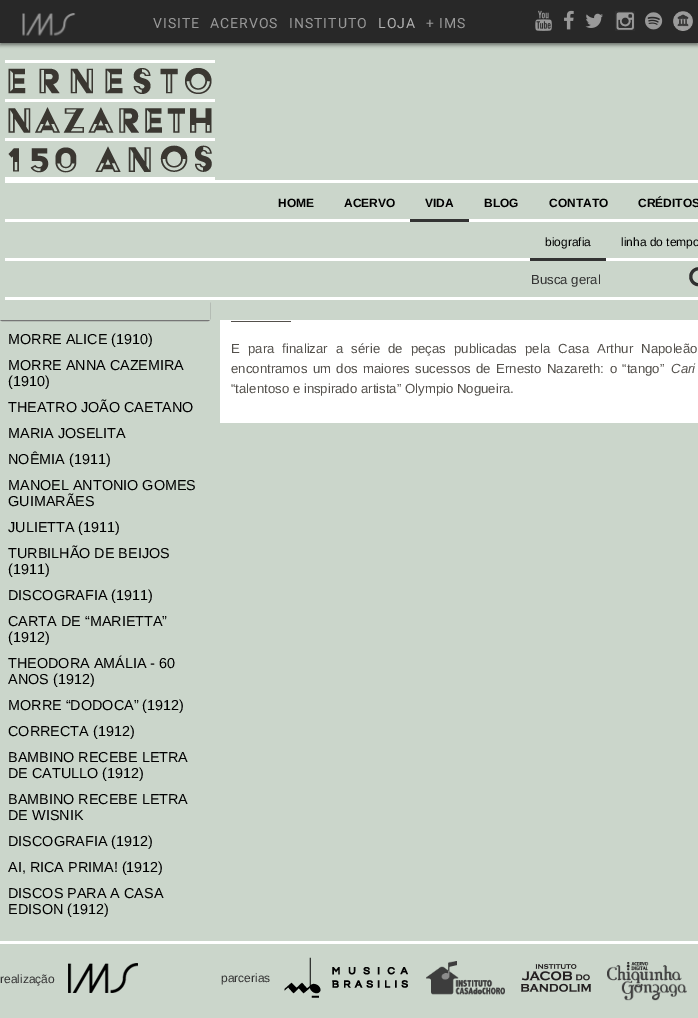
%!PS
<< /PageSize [698 1018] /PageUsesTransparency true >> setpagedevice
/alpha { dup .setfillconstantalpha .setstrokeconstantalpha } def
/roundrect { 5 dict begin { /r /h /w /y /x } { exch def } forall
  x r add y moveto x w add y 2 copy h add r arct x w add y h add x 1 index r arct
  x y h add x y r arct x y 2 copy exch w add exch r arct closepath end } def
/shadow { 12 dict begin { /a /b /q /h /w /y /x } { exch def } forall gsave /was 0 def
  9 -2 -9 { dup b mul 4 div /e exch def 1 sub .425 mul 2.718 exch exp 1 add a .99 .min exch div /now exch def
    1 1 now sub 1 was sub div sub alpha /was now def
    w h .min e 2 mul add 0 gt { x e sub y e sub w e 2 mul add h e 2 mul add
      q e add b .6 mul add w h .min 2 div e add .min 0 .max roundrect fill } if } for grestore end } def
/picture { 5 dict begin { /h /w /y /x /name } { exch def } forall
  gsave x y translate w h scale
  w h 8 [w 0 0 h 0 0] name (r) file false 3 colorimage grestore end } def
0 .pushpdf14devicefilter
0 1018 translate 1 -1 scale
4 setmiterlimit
0.796 0.839 0.796 setrgbcolor
0 0 698 1018 rectfill
0 setgray
0 2 698 43 0 2 0.5 shadow
0.157 setgray
0 0 698 43 rectfill
(img1.rgb) 22 13 54 23 picture
/Roboto-Regular [14 0 0 -14 0 0] selectfont
0.6 setgray
153 28 moveto 1 0 (VISITE) ashow
210 28 moveto 1 0 (ACERVOS) ashow
289 28 moveto 1 0 (INSTITUTO) ashow
0.69 setgray
378 28 moveto 1 0 (LOJA) ashow
0.6 setgray
426 28 moveto 1 0 (+ IMS) ashow
(img2.rgb) 535 10 17 21 picture
(img3.rgb) 564 10 10 20 picture
(img4.rgb) 585 13 18 15 picture
(img5.rgb) 615 11 20 20 picture
(img6.rgb) 645 12 18 18 picture
(img7.rgb) 673 11 20 20 picture
0.463 setgray
0.5 301.5 209 19 1.5 roundrect stroke
0.796 0.839 0.796 setrgbcolor
0 301 210 19 rectfill
(img8.rgb) 5 60 210 120 picture
(img9.rgb) 5 180 693 120 picture
/LiberationSans-Bold [12 0 0 -12 0 0] selectfont
0 setgray
278 207 moveto (HOME) show
344 207 moveto (ACERVO) show
638 207 moveto (CRÉDITOS) show
0.2 setgray
410 219 59 3 rectfill
0 setgray
425 207 moveto (VIDA) show
0.2 setgray
530 258 76 3 rectfill
/LiberationSans-Regular [12 0 0 -12 0 0] selectfont
0 setgray
545 246 moveto (biografia) show
621 246 moveto (linha do tempo) show
/LiberationSans-Bold [12 0 0 -12 0 0] selectfont
484 207 moveto (BLOG) show
549 207 moveto (CONTATO) show
/LiberationSans-Regular [13.2 0 0 -13.2 0 0] selectfont
0.2 setgray
531 284 moveto (Busca geral) show
(img10.rgb) 689 267 9 20 picture
/LiberationSans-Regular [14.4 0 0 -14.4 0 0] selectfont
0 setgray
8 344 moveto (MORRE ALICE \(1910\)) show
8 370 moveto (MORRE ANNA CAZEMIRA) show
8 386 moveto (\(1910\)) show
8 412 moveto (THEATRO JOÃO CAETANO) show
8 438 moveto (MARIA JOSELITA) show
8 464 moveto (NOÊMIA \(1911\)) show
8 490 moveto (MANOEL ANTONIO GOMES) show
8 506 moveto (GUIMARÃES) show
8 532 moveto (JULIETTA \(1911\)) show
8 558 moveto (TURBILHÃO DE BEIJOS) show
8 574 moveto (\(1911\)) show
8 600 moveto (DISCOGRAFIA \(1911\)) show
8 626 moveto (CARTA DE “MARIETTA”) show
8 642 moveto (\(1912\)) show
8 668 moveto (THEODORA AMÁLIA - 60) show
8 684 moveto (ANOS \(1912\)) show
8 710 moveto (MORRE “DODOCA” \(1912\)) show
8 736 moveto (CORRECTA \(1912\)) show
8 762 moveto (BAMBINO RECEBE LETRA) show
8 778 moveto (DE CATULLO \(1912\)) show
8 804 moveto (BAMBINO RECEBE LETRA) show
8 820 moveto (DE WISNIK) show
8 846 moveto (DISCOGRAFIA \(1912\)) show
8 872 moveto (AI, RICA PRIMA! \(1912\)) show
8 898 moveto (DISCOS PARA A CASA) show
8 914 moveto (EDISON \(1912\)) show
1 setgray
220 320 478 103 rectfill
0.325 0.314 0.294 setrgbcolor
231 321 60 1 rectfill
/LiberationSans-Regular [13.2 0 0 -13.2 0 0] selectfont
231 353 moveto 4.4 0 32 (E para finalizar a série de peças publicadas pela Casa Arthur Napoleão) widthshow
231 373 moveto 1.75 0 32 (encontramos um dos maiores sucessos de Ernesto Nazareth: o “tango”) widthshow
/LiberationSans-Italic [13.2 0 0 -13.2 0 0] selectfont
671 373 moveto (Cari) show
/LiberationSans-Regular [13.2 0 0 -13.2 0 0] selectfont
231 393 moveto (“talentoso e inspirado artista” Olympio Nogueira.) show
1 setgray
0 941 698 3 rectfill
/LiberationSans-Regular [12 0 0 -12 0 0] selectfont
0.2 setgray
0 983 moveto (realização) show
(img11.rgb) 68 963 70 30 picture
221 982 moveto (parcerias) show
(img12.rgb) 284 957 124 41 picture
(img13.rgb) 426 961 79 34 picture
(img14.rgb) 521 964 70 28 picture
(img15.rgb) 607 962 80 39 picture
.poppdf14devicefilter showpage
